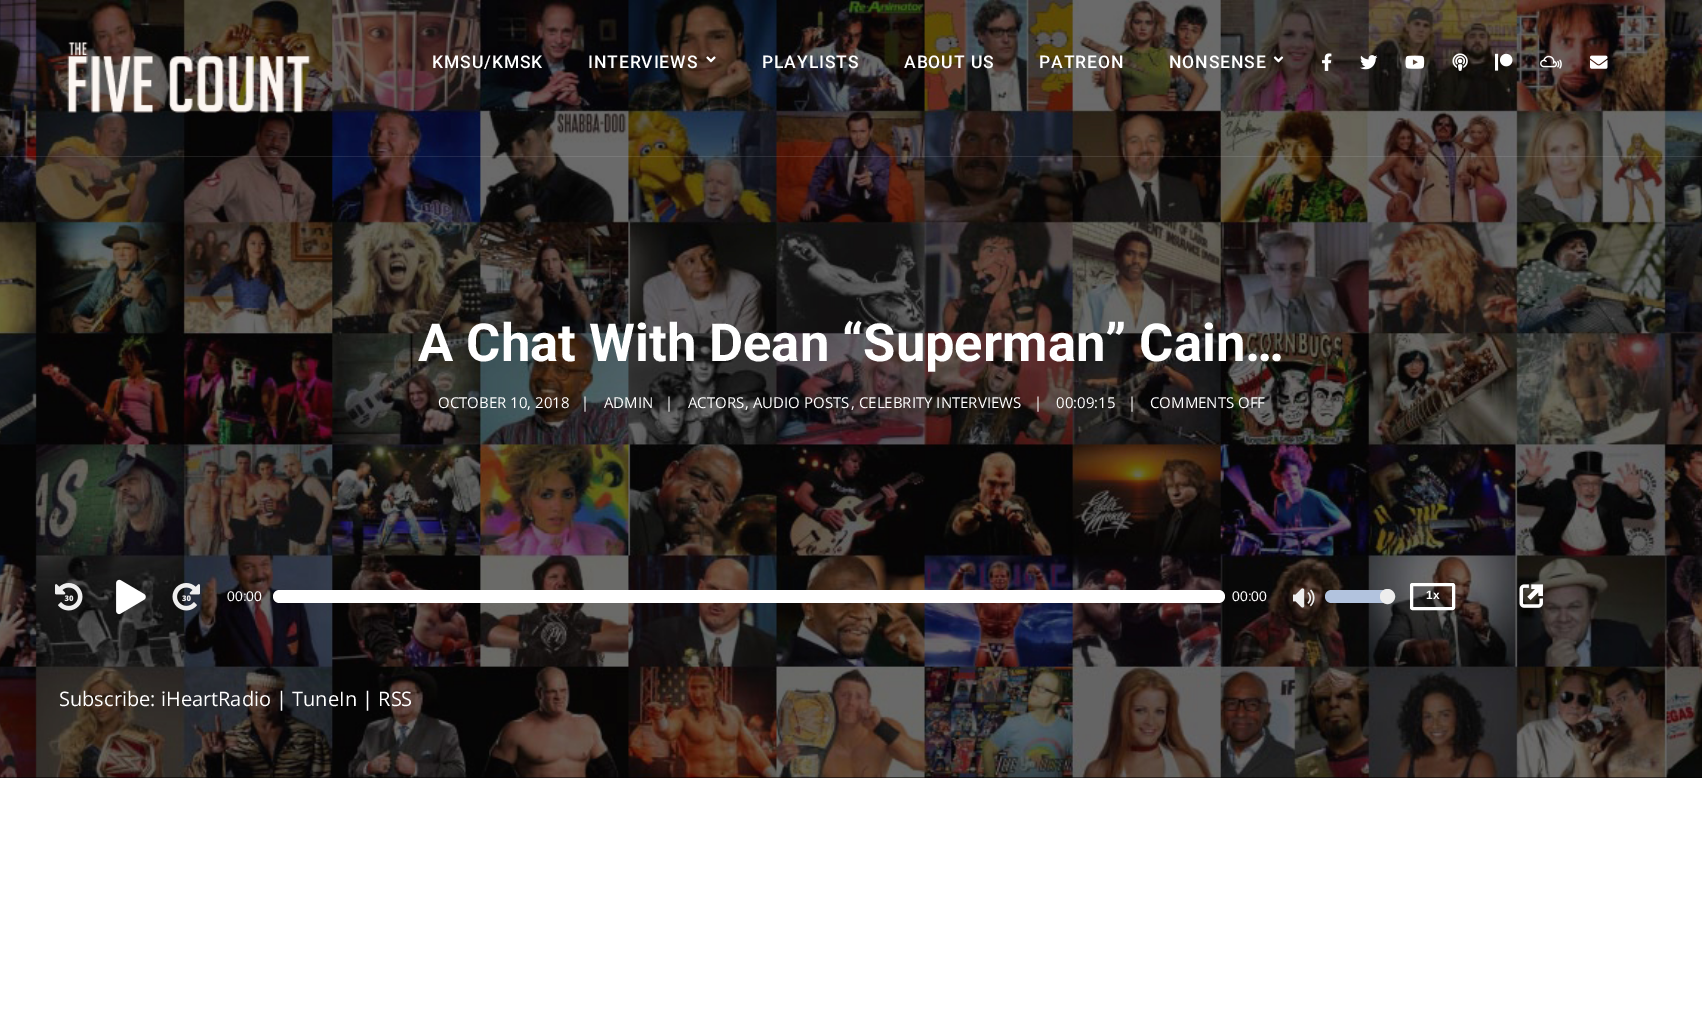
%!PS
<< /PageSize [1702 1012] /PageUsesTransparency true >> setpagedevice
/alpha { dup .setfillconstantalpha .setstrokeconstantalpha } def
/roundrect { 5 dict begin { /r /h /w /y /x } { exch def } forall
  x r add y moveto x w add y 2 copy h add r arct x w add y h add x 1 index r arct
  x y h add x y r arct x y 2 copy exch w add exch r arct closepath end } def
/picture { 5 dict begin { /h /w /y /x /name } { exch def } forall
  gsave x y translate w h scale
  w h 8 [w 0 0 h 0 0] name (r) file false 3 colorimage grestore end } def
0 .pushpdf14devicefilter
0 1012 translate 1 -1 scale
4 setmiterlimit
1 setgray
0 0 1702 1012 rectfill
0 setgray
0 777 1702 1 rectfill
(img11.rgb) 0 0 1702 778 picture
(img1.rgb) 67 42 244 71 picture
/Roboto-Medium [17.5 0 0 -17.5 0 0] selectfont
1 setgray
432 68 moveto 0.9 0 (KMSU/KMSK) ashow
588 68 moveto 0.9 0 (INTERVIEWS) ashow
(img2.rgb) 706 56 10 7 picture
762 68 moveto 0.9 0 (PLAYLISTS) ashow
904 68 moveto 0.9 0 (ABOUT US) ashow
1039 68 moveto 0.9 0 (PATREON) ashow
1169 68 moveto 0.9 0 (NONSENSE) ashow
(img3.rgb) 1273 56 11 7 picture
(img4.rgb) 1322 53 10 18 picture
(img5.rgb) 1360 55 18 15 picture
(img6.rgb) 1405 55 20 14 picture
(img7.rgb) 1452 53 16 18 picture
(img8.rgb) 1495 53 18 18 picture
(img9.rgb) 1540 55 22 14 picture
(img10.rgb) 1590 55 18 14 picture
0.1 alpha
0 156 1702 1 rectfill
/Roboto-Bold [52.5 0 0 -52.5 0 0] selectfont
1 alpha
418 361 moveto (A Chat With Dean “Superman” Cain…) show
/OpenSans-Regular [15 0 0 -15 0 0] selectfont
438 408 moveto (OCTOBER 10, 2018) show
581 408 moveto (|) show
604 408 moveto (ADMIN) show
665 408 moveto (|) show
688 408 moveto (ACTORS) show
745 408 moveto (, AUDIO POSTS) show
851 408 moveto (, CELEBRITY INTERVIEWS) show
1034 408 moveto (|) show
1056 408 moveto (00:09:15) show
1128 408 moveto (|) show
1150 408 moveto (COMMENTS OFF) show
(img12.rgb) 55 583 28 28 picture
(img13.rgb) 116 579 30 36 picture
(img14.rgb) 172 583 28 28 picture
/LiberationSans-Regular [14 0 0 -14 0 0] selectfont
227 601 moveto (00:00) show
273 590 952 13 6.5 roundrect fill
1232 601 moveto (00:00) show
(img15.rgb) 1293 588 22 20 picture
0.698 0.765 0.871 setrgbcolor
1325 590 63 13 6.5 roundrect fill
0.929 setgray
newpath 1387.5 596.5 7 0 360 arc closepath gsave fill grestore
stroke
0.1 alpha
0 setgray
1411.5 584.5 42 24 1 roundrect fill
1 alpha
1 setgray
3 setlinewidth
1411.5 584.5 42 24 1 roundrect stroke
/LiberationSans-Bold [12 0 0 -12 0 0] selectfont
1426 599 moveto (1x) show
(img16.rgb) 1519 584 24 24 picture
/OpenSans-Regular [20 0 0 -20 0 0] selectfont
59 706 moveto (Subscribe: iHeartRadio) show
276 706 moveto (| TuneIn) show
362 706 moveto (| RSS) show
.poppdf14devicefilter showpage
